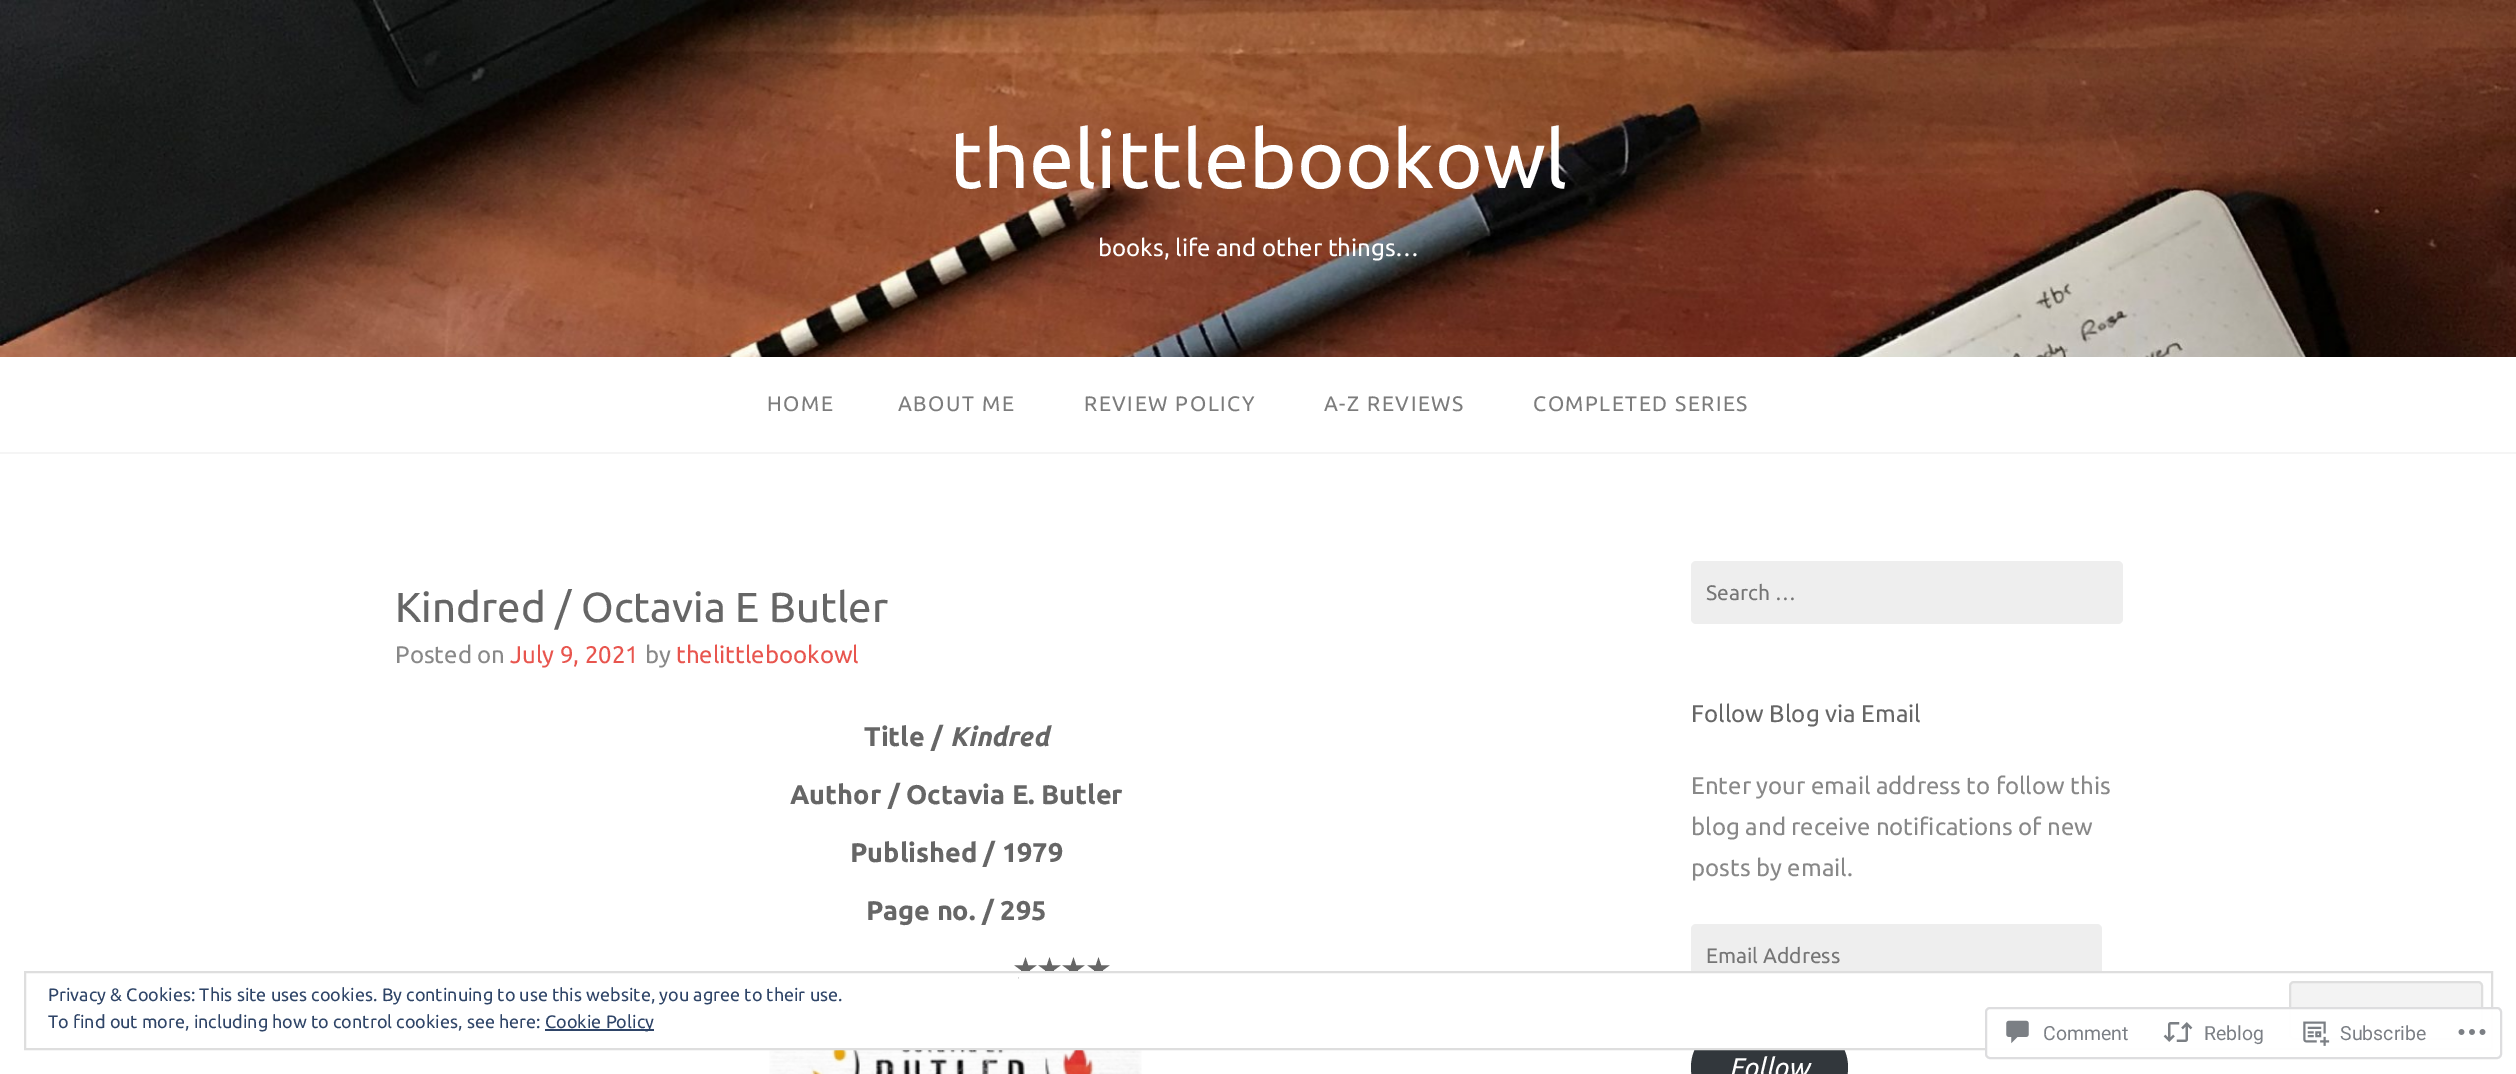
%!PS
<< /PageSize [2516 1074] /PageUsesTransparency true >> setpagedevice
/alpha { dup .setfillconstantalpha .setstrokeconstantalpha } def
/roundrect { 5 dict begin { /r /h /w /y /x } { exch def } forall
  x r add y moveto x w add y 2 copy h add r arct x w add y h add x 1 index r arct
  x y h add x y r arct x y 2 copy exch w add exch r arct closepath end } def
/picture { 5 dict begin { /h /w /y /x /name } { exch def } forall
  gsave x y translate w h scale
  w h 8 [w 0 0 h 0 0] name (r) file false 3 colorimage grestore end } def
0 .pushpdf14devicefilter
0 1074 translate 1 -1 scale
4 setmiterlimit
1 setgray
0 0 2516 1074 rectfill
(img1.rgb) 0 0 2516 357 picture
/Ubuntu-Regular [81 0 0 -81 0 0] selectfont
950 188 moveto (thelittlebookowl) show
/Ubuntu-Regular [24 0 0 -24 0 0] selectfont
1098 256 moveto (books, life and other things…) show
0.961 setgray
0 452 2516 2 rectfill
/Ubuntu-Regular [21 0 0 -21 0 0] selectfont
0.486 setgray
767 411 moveto 1.5 0 (HOME) ashow
898 411 moveto 1.5 0 (ABOUT ME) ashow
1084 411 moveto 1.5 0 (REVIEW POLICY) ashow
1324 411 moveto 1.5 0 (A-Z REVIEWS) ashow
1533 411 moveto 1.5 0 (COMPLETED SERIES) ashow
/Ubuntu-Regular [42 0 0 -42 0 0] selectfont
0.4 setgray
395 622 moveto (Kindred / Octavia E Butler) show
/Ubuntu-Regular [24 0 0 -24 0 0] selectfont
0.533 setgray
395 663 moveto (Posted on) show
0.91 0.333 0.306 setrgbcolor
510 663 moveto (July 9, 2021) show
0.533 setgray
645 663 moveto (by) show
0.91 0.333 0.306 setrgbcolor
676 663 moveto (thelittlebookowl) show
/Ubuntu-Bold [27 0 0 -27 0 0] selectfont
0.4 setgray
864 746 moveto (Title /) show
/Ubuntu-BoldItalic [27 0 0 -27 0 0] selectfont
950 746 moveto (Kindred) show
/Ubuntu-Bold [27 0 0 -27 0 0] selectfont
790 804 moveto (Author / Octavia E. Butler) show
850 862 moveto (Published / 1979) show
866 920 moveto (Page no. / 295) show
/DejaVuSans-Bold [27 0 0 -27 0 0] selectfont
1013 978 moveto (★★★★) show
(img2.rgb) 769 1050 373 24 picture
0.933 setgray
1691 561 432 63 5 roundrect fill
/Ubuntu-Regular [21 0 0 -21 0 0] selectfont
0.459 setgray
1706 600 moveto (Search …) show
/Ubuntu-Regular [24 0 0 -24 0 0] selectfont
0.4 setgray
1691 722 moveto (Follow Blog via Email) show
0.533 setgray
1691 794 moveto (Enter your email address to follow this) show
1691 835 moveto (blog and receive notifications of new) show
1691 876 moveto (posts by email.) show
0.933 setgray
1691 924 411 63 5 roundrect fill
/Ubuntu-Regular [21 0 0 -21 0 0] selectfont
0.459 setgray
1706 963 moveto (Email Address) show
0.196 0.216 0.235 setrgbcolor
1691 1023 157 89 44.5 roundrect fill
/Ubuntu-Italic [27 0 0 -27 0 0] selectfont
1 setgray
1729 1077 moveto (Follow) show
1019 973 1083 75 rectfill
0.871 setgray
2 setlinewidth
25 972 2467 77 rectstroke
/Ubuntu-Regular [18 0 0 -18 0 0] selectfont
0.18 0.267 0.404 setrgbcolor
48 1001 moveto (Privacy & Cookies: This site uses cookies. By continuing to use this website, you agree to their use.) show
0.953 setgray
2290 982 192 57 4 roundrect gsave fill grestore
0.871 setgray
stroke
0.18 0.267 0.404 setrgbcolor
48 1028 moveto (To find out more, including how to control cookies, see here:) show
545 1029 109 2 rectfill
545 1028 moveto (Cookie Policy) show
0.98 alpha
1 setgray
1985 1007 517 52 5 roundrect fill
0.863 0.863 0.871 setrgbcolor
1986 1008 515 50 4 roundrect stroke
1 alpha
(img3.rgb) 2006 1020 23 24 picture
/Roboto-Regular [19.5 0 0 -19.5 0 0] selectfont
0.482 0.498 0.522 setrgbcolor
2043 1040 moveto (Comment) show
(img4.rgb) 2163 1022 30 20 picture
2204 1040 moveto (Reblog) show
(img5.rgb) 2303 1021 27 25 picture
2340 1040 moveto (Subscribe) show
(img6.rgb) 2458 1029 28 6 picture
.poppdf14devicefilter showpage
